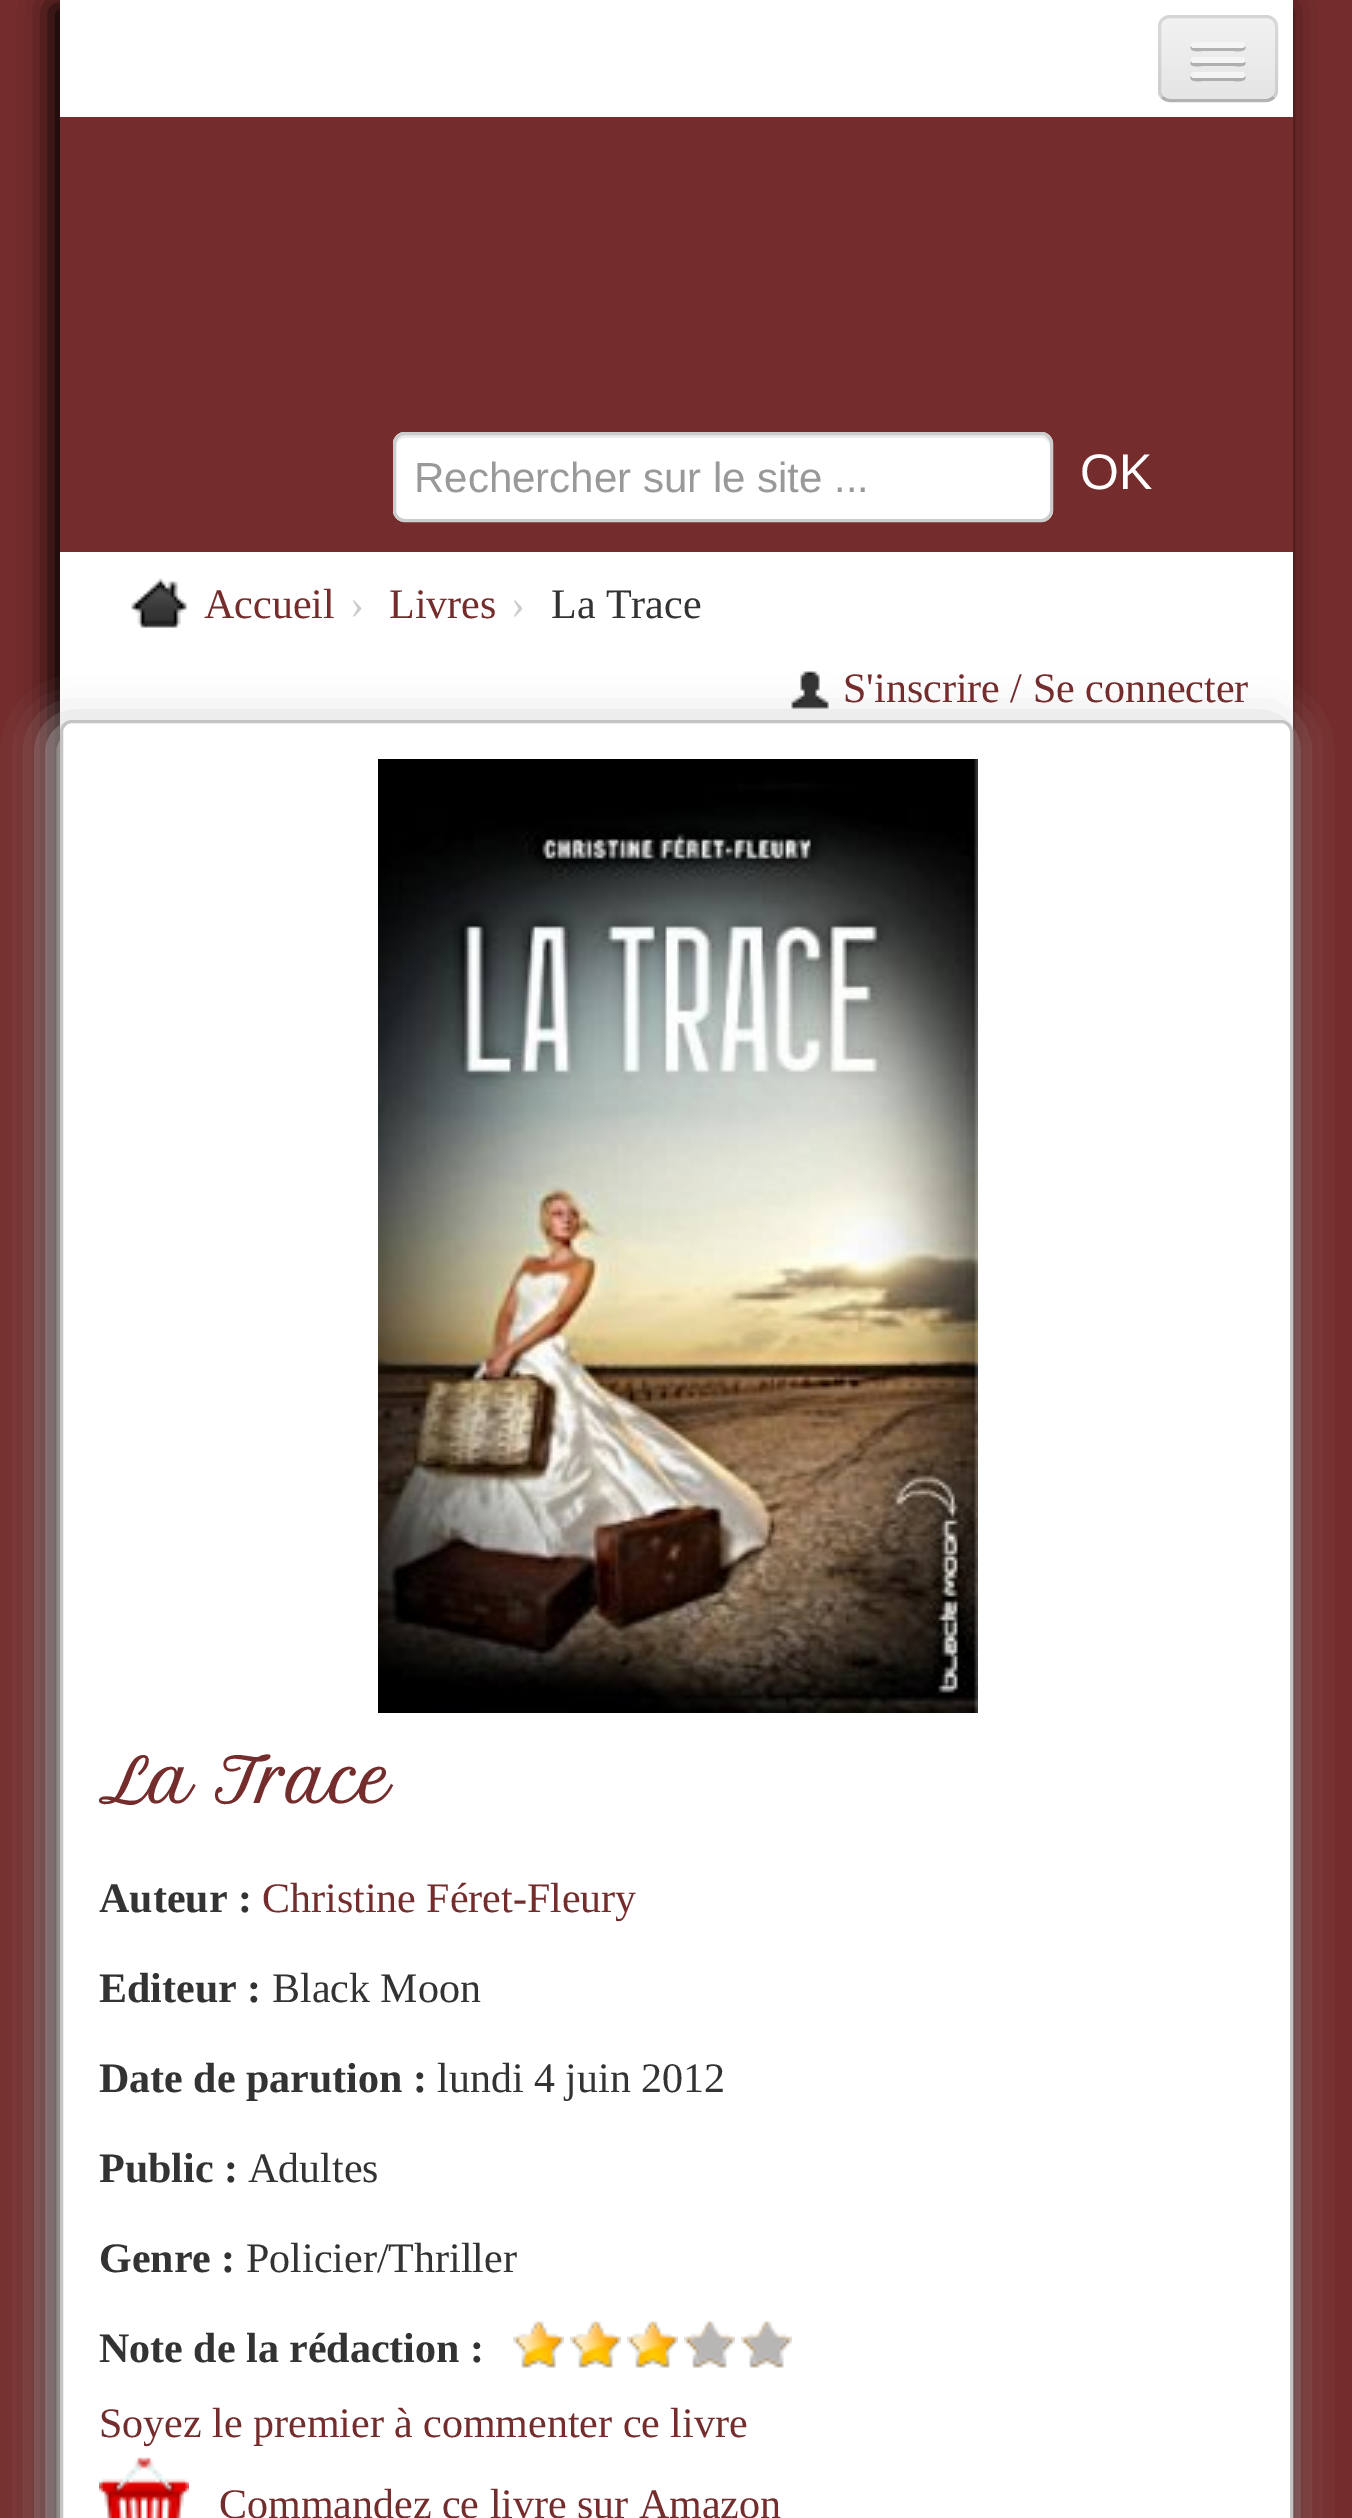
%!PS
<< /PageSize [1352 2518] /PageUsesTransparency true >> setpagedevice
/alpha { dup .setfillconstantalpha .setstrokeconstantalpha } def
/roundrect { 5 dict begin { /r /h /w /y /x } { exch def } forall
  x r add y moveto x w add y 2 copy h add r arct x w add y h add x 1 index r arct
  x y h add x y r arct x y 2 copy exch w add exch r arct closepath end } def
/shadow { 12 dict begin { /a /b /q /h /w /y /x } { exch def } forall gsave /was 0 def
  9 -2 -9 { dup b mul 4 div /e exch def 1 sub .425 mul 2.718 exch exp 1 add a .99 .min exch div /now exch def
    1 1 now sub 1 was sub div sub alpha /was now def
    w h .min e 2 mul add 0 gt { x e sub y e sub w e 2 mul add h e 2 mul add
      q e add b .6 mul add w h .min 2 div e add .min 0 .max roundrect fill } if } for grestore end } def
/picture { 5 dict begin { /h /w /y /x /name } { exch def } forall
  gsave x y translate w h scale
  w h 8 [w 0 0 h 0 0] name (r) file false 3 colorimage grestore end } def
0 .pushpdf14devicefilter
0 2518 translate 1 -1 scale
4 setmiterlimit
0.455 0.173 0.173 setrgbcolor
0 0 1352 2518 rectfill
0 setgray
51 6 1233 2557 0 15 1 shadow
1 setgray
60 0 1233 732 rectfill
0.929 setgray
1158 15 120 87 12 roundrect fill
gsave
1158 15 120 87 12 roundrect clip newpath
gsave newpath 1158 18 moveto 1278 18 lineto 1278 99 lineto 1158 99 lineto closepath clip newpath
<< /ShadingType 2 /ColorSpace /DeviceRGB /Coords [1218 18 1218 99] /Extend [true true] /Function << /FunctionType 2 /Domain [0 1] /C0 [0.949 0.949 0.949] /C1 [0.898 0.898 0.898] /N 1 >> >> shfill grestore
grestore
0.25 alpha
0 setgray
3 setlinewidth
newpath 1273.5 97.5 moveto 1271.5 99.5 1269 100.5 1266 100.5 curveto 1170 100.5 lineto 1167 100.5 1164.5 99.5 1162.5 97.5 curveto stroke
0.1 alpha
newpath 1162.5 97.5 moveto 1160.5 95.5 1159.5 93 1159.5 90 curveto 1159.5 27 lineto 1159.5 24 1160.5 21.5 1162.5 19.5 curveto 1164.5 17.5 1167 16.5 1170 16.5 curveto 1266 16.5 lineto 1269 16.5 1271.5 17.5 1273.5 19.5 curveto 1275.5 21.5 1276.5 24 1276.5 27 curveto 1276.5 90 lineto 1276.5 93 1275.5 95.5 1273.5 97.5 curveto stroke
1 alpha
0.698 setgray
newpath 1191 46 moveto 1188 53 1202 51 1202 51 curveto 1234 51 lineto 1234 51 1248 53 1245 46 curveto 1244 47 1243 48 1242 48 curveto 1194 48 lineto 1193 48 1192 47 1191 46 curveto closepath fill
0.961 setgray
1191 42 54 6 3 roundrect fill
0.69 setgray
newpath 1191 62 moveto 1188 68 1202 66 1202 66 curveto 1234 66 lineto 1234 66 1248 68 1245 62 curveto 1244 62 1243 63 1242 63 curveto 1194 63 lineto 1193 63 1192 62 1191 62 curveto closepath fill
0.961 setgray
1191 57 54 6 3 roundrect fill
0.682 setgray
newpath 1191 76 moveto 1188 83 1202 81 1202 81 curveto 1234 81 lineto 1234 81 1248 83 1245 76 curveto 1244 77 1243 78 1242 78 curveto 1194 78 lineto 1193 78 1192 77 1191 76 curveto closepath fill
0.961 setgray
1191 72 54 6 3 roundrect fill
0.455 0.173 0.173 setrgbcolor
60 117 1233 435 rectfill
1 setgray
393 432 660 90 12 roundrect fill
0.925 setgray
newpath 405 438 moveto 1041 438 lineto 1046 438 1050 442 1050 447 curveto 1050 444 lineto 1050 439 1046 435 1041 435 curveto 405 435 lineto 400 435 396 439 396 444 curveto 396 447 lineto 396 442 400 438 405 438 curveto closepath fill
0.8 setgray
394.5 433.5 657 87 10.5 roundrect stroke
/LiberationSans-Regular [42 0 0 -42 0 0] selectfont
0.6 setgray
414 492 moveto (Rechercher sur le site ...) show
/LiberationSans-Regular [50 0 0 -50 0 0] selectfont
1 setgray
1080 489 moveto (OK) show
(img1.rgb) 131 578 56 50 picture
/LiberationSerif-Regular [42 0 0 -42 0 0] selectfont
0.455 0.173 0.173 setrgbcolor
204 618 moveto (Accueil) show
0.8 setgray
350 618 moveto (›) show
0.455 0.173 0.173 setrgbcolor
389 618 moveto (Livres) show
0.8 setgray
511 618 moveto (›) show
0.2 setgray
551 618 moveto (La Trace) show
0.765 setgray
51 726 1233 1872 12 22.5 1 shadow
(img2.rgb) 791 671 38 38 picture
0.455 0.173 0.173 setrgbcolor
843 702 moveto (S'inscrire / Se connecter) show
1 setgray
61.5 721.5 1230 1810 10.5 roundrect gsave fill grestore
0.765 setgray
stroke
(img3.rgb) 378 759 600 954 picture
/PetitFormalScript-Bold [59 0 0 -59 0 0] selectfont
0.455 0.173 0.173 setrgbcolor
99 1803 moveto (La Trace) show
/LiberationSerif-Bold [42 0 0 -42 0 0] selectfont
0.2 setgray
99 1912 moveto (Auteur :) show
/LiberationSerif-Regular [42 0 0 -42 0 0] selectfont
0.455 0.173 0.173 setrgbcolor
262 1912 moveto (Christine Féret-Fleury) show
/LiberationSerif-Bold [42 0 0 -42 0 0] selectfont
0.2 setgray
99 2002 moveto (Editeur :) show
/LiberationSerif-Regular [42 0 0 -42 0 0] selectfont
272 2002 moveto (Black Moon) show
/LiberationSerif-Bold [42 0 0 -42 0 0] selectfont
99 2092 moveto (Date de parution :) show
/LiberationSerif-Regular [42 0 0 -42 0 0] selectfont
437 2092 moveto (lundi 4 juin 2012) show
/LiberationSerif-Bold [42 0 0 -42 0 0] selectfont
99 2182 moveto (Public :) show
/LiberationSerif-Regular [42 0 0 -42 0 0] selectfont
248 2182 moveto (Adultes) show
/LiberationSerif-Bold [42 0 0 -42 0 0] selectfont
99 2272 moveto (Genre :) show
/LiberationSerif-Regular [42 0 0 -42 0 0] selectfont
246 2272 moveto (Policier/Thriller) show
/LiberationSerif-Bold [42 0 0 -42 0 0] selectfont
99 2362 moveto (Note de la rédaction :) show
(img4.rgb) 513 2319 51 49 picture
(img5.rgb) 570 2319 51 49 picture
(img4.rgb) 627 2319 51 49 picture
(img6.rgb) 684 2319 51 49 picture
(img7.rgb) 741 2319 51 49 picture
/LiberationSerif-Regular [42 0 0 -42 0 0] selectfont
0.455 0.173 0.173 setrgbcolor
99 2437 moveto (Soyez le premier à commenter ce livre) show
(img8.rgb) 99 2457 90 61 picture
219 2518 moveto (Commandez ce livre sur Amazon) show
.poppdf14devicefilter showpage
